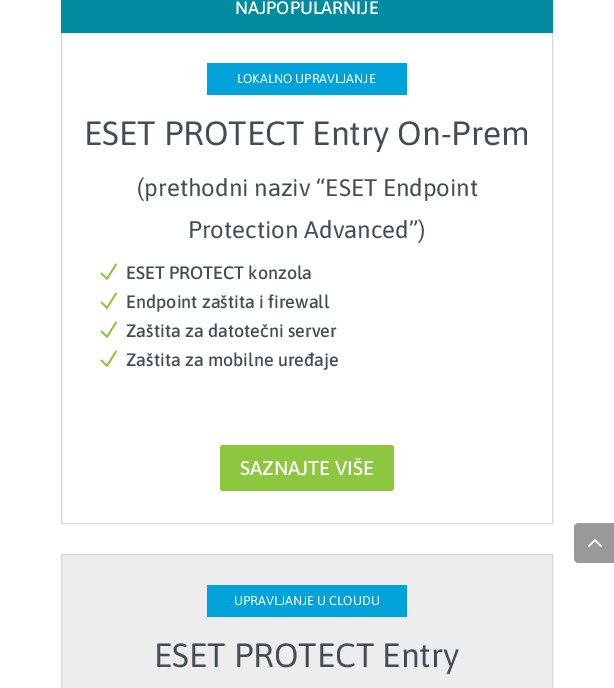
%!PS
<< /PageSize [614 688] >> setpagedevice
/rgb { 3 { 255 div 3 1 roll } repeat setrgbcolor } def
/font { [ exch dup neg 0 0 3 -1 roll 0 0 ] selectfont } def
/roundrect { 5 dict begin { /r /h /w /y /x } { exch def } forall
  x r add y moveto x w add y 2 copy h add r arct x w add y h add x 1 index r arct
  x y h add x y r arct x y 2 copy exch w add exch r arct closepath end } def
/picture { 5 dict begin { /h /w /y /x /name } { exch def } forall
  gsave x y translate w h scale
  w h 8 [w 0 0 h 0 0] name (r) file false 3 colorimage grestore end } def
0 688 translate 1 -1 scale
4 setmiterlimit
255 255 255 rgb
0 0 614 688 rectfill
214 214 214 rgb
61.5 32.5 491 491 rectstroke
0 139 160 rgb
61 0 492 33 rectfill
0 163 217 rgb
207 63 200 32 rectfill
(img/1.rgb) 100 263 17 17 picture
(img/1.rgb) 100 292 17 17 picture
(img/1.rgb) 100 321 17 17 picture
(img/1.rgb) 100 350 17 17 picture
141 198 63 rgb
220 445 174 46 3 roundrect fill
237 237 237 rgb
61.5 554.5 moveto 552.5 554.5 lineto 552.5 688.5 lineto 61.5 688.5 lineto closepath gsave fill grestore
214 214 214 rgb
stroke
0 163 217 rgb
207 585 200 32 rectfill
153 153 153 rgb
579 523 moveto 614 523 lineto 614 563 lineto 579 563 lineto 576 563 574 561 574 558 curveto 574 528 lineto 574 525 576 523 579 523 curveto closepath fill
(img/2.rgb) 588 539 14 8 picture
/Asap-Medium 18 font
255 255 255 rgb
235 14 moveto (NAJPOPULARNIJE) show
/Asap-Regular 12.75 font
237 83 moveto (LOKALNO UPRAVLJANJE) show
/Asap-Regular 33.6 font
66 77 86 rgb
84 145 moveto (ESET PROTECT Entry On-Prem) show
/Asap-Regular 24 font
137 196 moveto (\(prethodni naziv “ESET Endpoint) show
188 238 moveto (Protection Advanced”\)) show
/Asap-Medium 18 font
[
  [(ESET PROTECT konzola) 126 279]
  [(Endpoint zaštita i firewall) 126 308]
  [(Zaštita za datotečni server) 126 337]
  [(Zaštita za mobilne uređaje) 126 366]
] { aload pop moveto show } forall
/Asap-Medium 20 font
255 255 255 rgb
240 475 moveto (SAZNAJTE VIŠE) show
/Asap-Regular 12.75 font
234 605 moveto (UPRAVLJANJE U CLOUDU) show
/Asap-Regular 33.6 font
66 77 86 rgb
154 667 moveto (ESET PROTECT Entry) show
showpage
